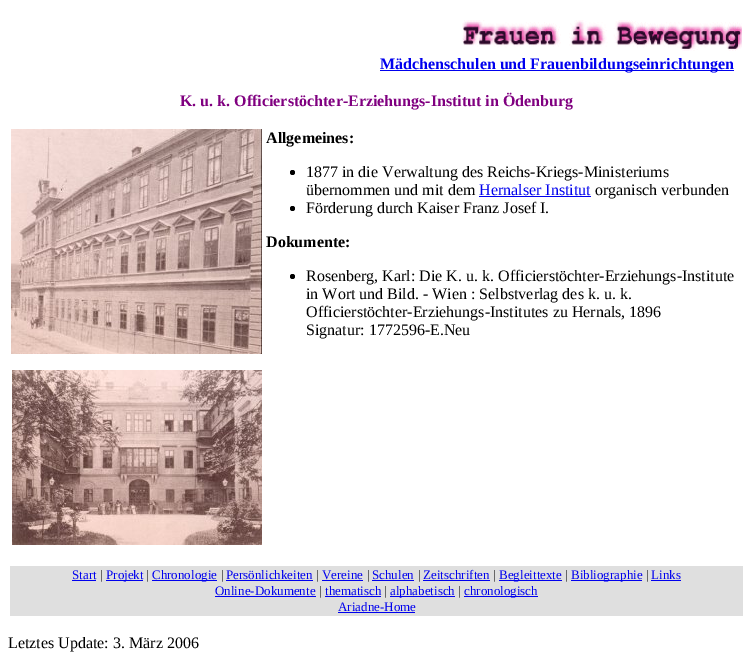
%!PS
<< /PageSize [753 663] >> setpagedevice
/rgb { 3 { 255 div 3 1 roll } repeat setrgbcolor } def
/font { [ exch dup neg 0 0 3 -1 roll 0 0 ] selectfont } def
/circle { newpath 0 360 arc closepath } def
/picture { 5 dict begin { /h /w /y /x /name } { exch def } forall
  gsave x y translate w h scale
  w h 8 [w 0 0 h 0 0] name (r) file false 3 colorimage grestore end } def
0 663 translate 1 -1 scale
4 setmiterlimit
255 255 255 rgb
0 0 753 663 rectfill
(img/1.rgb) 462 20 280 31 picture
0 0 238 rgb
380 70 354 1 rectfill
(img/2.rgb) 11 129 251 225 picture
(img/3.rgb) 12 370 250 175 picture
0 0 0 rgb
292.5 172.5 2.5 circle fill
0 0 238 rgb
479 196 112 1 rectfill
0 0 0 rgb
292.5 208.5 2.5 circle fill
292.5 276.5 2.5 circle fill
[
  [10 566 733 50 223 223 223]
  [72 580 24 1 0 0 238]
  [106 580 37 1 0 0 238]
  [152 580 65 1 0 0 238]
  [226 580 87 1 0 0 238]
  [322 580 41 1 0 0 238]
  [372 580 42 1 0 0 238]
  [423 580 67 1 0 0 238]
  [499 580 63 1 0 0 238]
  [571 580 71 1 0 0 238]
  [651 580 30 1 0 0 238]
  [215 596 101 1 0 0 238]
  [325 596 56 1 0 0 238]
  [390 596 65 1 0 0 238]
  [464 596 74 1 0 0 238]
  [338 612 77 1 0 0 238]
] { aload pop rgb rectfill } forall
/LiberationSerif-Bold 16 font
380 69 moveto (Mädchenschulen und Frauenbildungseinrichtungen) show
128 0 128 rgb
180 106 moveto (K. u. k. Officierstöchter-Erziehungs-Institut in Ödenburg) show
0 0 0 rgb
266 143 moveto (Allgemeines:) show
/LiberationSerif-Regular 16 font
306 177 moveto (1877 in die Verwaltung des Reichs-Kriegs-Ministeriums) show
306 195 moveto (übernommen und mit dem) show
0 0 238 rgb
479 195 moveto (Hernalser Institut) show
0 0 0 rgb
595 195 moveto (organisch verbunden) show
306 213 moveto (Förderung durch Kaiser Franz Josef I.) show
/LiberationSerif-Bold 16 font
266 247 moveto (Dokumente:) show
/LiberationSerif-Regular 16 font
[
  [(Rosenberg, Karl: Die K. u. k. Officierstöchter-Erziehungs-Institute) 306 281]
  [(in Wort und Bild. - Wien : Selbstverlag des k. u. k.) 306 299]
  [(Officierstöchter-Erziehungs-Institutes zu Hernals, 1896) 306 317]
  [(Signatur: 1772596-E.Neu) 306 335]
] { aload pop moveto show } forall
/LiberationSerif-Regular 13 font
0 0 238 rgb
72 579 moveto (Start) show
0 0 0 rgb
100 579 moveto (|) show
0 0 238 rgb
106 579 moveto (Projekt) show
0 0 0 rgb
146 579 moveto (|) show
0 0 238 rgb
152 579 moveto (Chronologie) show
0 0 0 rgb
221 579 moveto (|) show
0 0 238 rgb
226 579 moveto (Persönlichkeiten) show
0 0 0 rgb
316 579 moveto (|) show
0 0 238 rgb
322 579 moveto (Vereine) show
0 0 0 rgb
367 579 moveto (|) show
0 0 238 rgb
372 579 moveto (Schulen) show
0 0 0 rgb
418 579 moveto (|) show
0 0 238 rgb
423 579 moveto (Zeitschriften) show
0 0 0 rgb
493 579 moveto (|) show
0 0 238 rgb
499 579 moveto (Begleittexte) show
0 0 0 rgb
565 579 moveto (|) show
0 0 238 rgb
571 579 moveto (Bibliographie) show
0 0 0 rgb
646 579 moveto (|) show
0 0 238 rgb
651 579 moveto (Links) show
215 595 moveto (Online-Dokumente) show
0 0 0 rgb
319 595 moveto (|) show
0 0 238 rgb
325 595 moveto (thematisch) show
0 0 0 rgb
384 595 moveto (|) show
0 0 238 rgb
390 595 moveto (alphabetisch) show
0 0 0 rgb
458 595 moveto (|) show
0 0 238 rgb
464 595 moveto (chronologisch) show
338 611 moveto (Ariadne-Home) show
/LiberationSerif-Regular 16 font
0 0 0 rgb
8 648 moveto (Letztes Update: 3. März 2006) show
showpage
